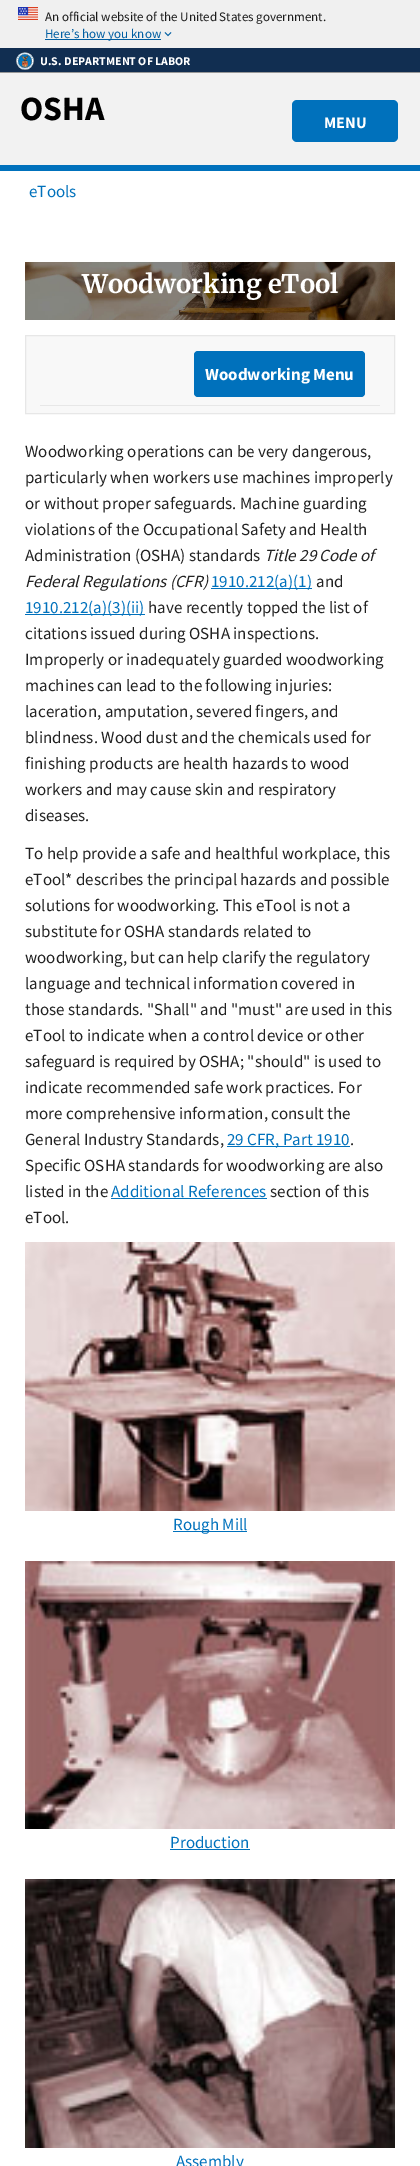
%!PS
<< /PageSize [420 2166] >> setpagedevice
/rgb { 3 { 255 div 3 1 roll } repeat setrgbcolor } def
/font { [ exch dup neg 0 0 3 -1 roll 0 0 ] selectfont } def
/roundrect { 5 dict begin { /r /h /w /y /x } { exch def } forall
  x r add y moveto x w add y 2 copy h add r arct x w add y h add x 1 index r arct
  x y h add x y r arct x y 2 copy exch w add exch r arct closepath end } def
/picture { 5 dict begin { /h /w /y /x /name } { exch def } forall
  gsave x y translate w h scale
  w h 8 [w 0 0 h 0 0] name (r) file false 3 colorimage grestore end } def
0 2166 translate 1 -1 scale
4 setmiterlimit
255 255 255 rgb
0 0 420 2166 rectfill
240 240 240 rgb
0 0 420 48 rectfill
(img/1.rgb) 18 7 20 13 picture
0 94 162 rgb
45 39 116 1 rectfill
(img/2.rgb) 164 32 8 5 picture
17 46 81 rgb
0 48 420 24 rectfill
151 151 151 rgb
0 72 420 1 rectfill
(img/3.rgb) 16 52 18 18 picture
242 242 242 rgb
0 73 420 92 rectfill
0 113 188 rgb
292 100 106 42 5 roundrect fill
0 165 420 6 rectfill
(img/4.rgb) 25 262 370 58 picture
248 248 248 rgb
25.5 335.5 moveto 394.5 335.5 lineto 394.5 413.5 lineto 25.5 413.5 lineto closepath gsave fill grestore
231 231 231 rgb
stroke
0 113 188 rgb
194 351 171 46 4 roundrect fill
[
  [40 405 340 1 231 231 231]
  [211 588 101 1 0 113 188]
  [25 614 120 1 0 113 188]
  [227 1146 123 1 0 113 188]
  [111 1198 156 1 0 113 188]
] { aload pop rgb rectfill } forall
(img/5.rgb) 25 1242 370 269 picture
173 1531 74 1 rectfill
(img/6.rgb) 25 1561 370 268 picture
170 1849 80 1 rectfill
(img/7.rgb) 25 1879 370 269 picture
/SourceSansPro-Regular 13 font
27 27 27 rgb
45 21 moveto (An official website of the United States government.) show
0 94 162 rgb
45 38 moveto (Here’s how you know) show
/SourceSansPro-Bold 11.9 font
255 255 255 rgb
40 65 moveto (U.S. DEPARTMENT OF LABOR) show
/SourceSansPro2-Bold 34 font
0 0 0 rgb
20 120 moveto (OSHA) show
/SourceSansPro-Bold 16 font
255 255 255 rgb
324 128 moveto (MENU) show
/SourceSansPro2-Regular 17 font
0 113 188 rgb
29 197 moveto (eTools) show
/Merriweather-Bold 25.5 font
255 255 255 rgb
82 293 moveto (Woodworking eTool) show
/SourceSansPro-Bold 17 font
205 380 moveto (Woodworking Menu) show
/SourceSansPro2-Regular 17 font
33 33 33 rgb
[
  [(Woodworking operations can be very dangerous,) 25 457]
  [(particularly when workers use machines improperly) 25 483]
  [(or without proper safeguards. Machine guarding) 25 509]
  [(violations of the Occupational Safety and Health) 25 535]
  [(Administration \(OSHA\) standards) 25 561]
] { aload pop moveto show } forall
/SourceSansPro-Italic 17 font
264 561 moveto (Title 29 Code of) show
25 587 moveto (Federal Regulations \(CFR\)) show
/SourceSansPro2-Regular 17 font
0 113 188 rgb
211 587 moveto (1910.212\(a\)\(1\)) show
33 33 33 rgb
316 587 moveto (and) show
0 113 188 rgb
25 613 moveto (1910.212\(a\)\(3\)\(ii\)) show
33 33 33 rgb
[
  [(have recently topped the list of) 148 613]
  [(citations issued during OSHA inspections.) 25 639]
  [(Improperly or inadequately guarded woodworking) 25 665]
  [(machines can lead to the following injuries:) 25 691]
  [(laceration, amputation, severed fingers, and) 25 717]
  [(blindness. Wood dust and the chemicals used for) 25 743]
  [(finishing products are health hazards to wood) 25 769]
  [(workers and may cause skin and respiratory) 25 795]
  [(diseases.) 25 821]
  [(To help provide a safe and healthful workplace, this) 25 859]
  [(eTool* describes the principal hazards and possible) 25 885]
  [(solutions for woodworking. This eTool is not a) 25 911]
  [(substitute for OSHA standards related to) 25 937]
  [(woodworking, but can help clarify the regulatory) 25 963]
  [(language and technical information covered in) 25 989]
  [(those standards. "Shall" and "must" are used in this) 25 1015]
  [(eTool to indicate when a control device or other) 25 1041]
  [(safeguard is required by OSHA; "should" is used to) 25 1067]
  [(indicate recommended safe work practices. For) 25 1093]
  [(more comprehensive information, consult the) 25 1119]
  [(General Industry Standards,) 25 1145]
] { aload pop moveto show } forall
0 113 188 rgb
227 1145 moveto (29 CFR, Part 1910) show
33 33 33 rgb
[
  [(.) 350 1145]
  [(Specific OSHA standards for woodworking are also) 25 1171]
  [(listed in the) 25 1197]
] { aload pop moveto show } forall
0 113 188 rgb
111 1197 moveto (Additional References) show
33 33 33 rgb
270 1197 moveto (section of this) show
25 1223 moveto (eTool.) show
0 113 188 rgb
[
  [(Rough Mill) 173 1530]
  [(Production) 170 1848]
  [(Assembly) 176 2167]
] { aload pop moveto show } forall
showpage
